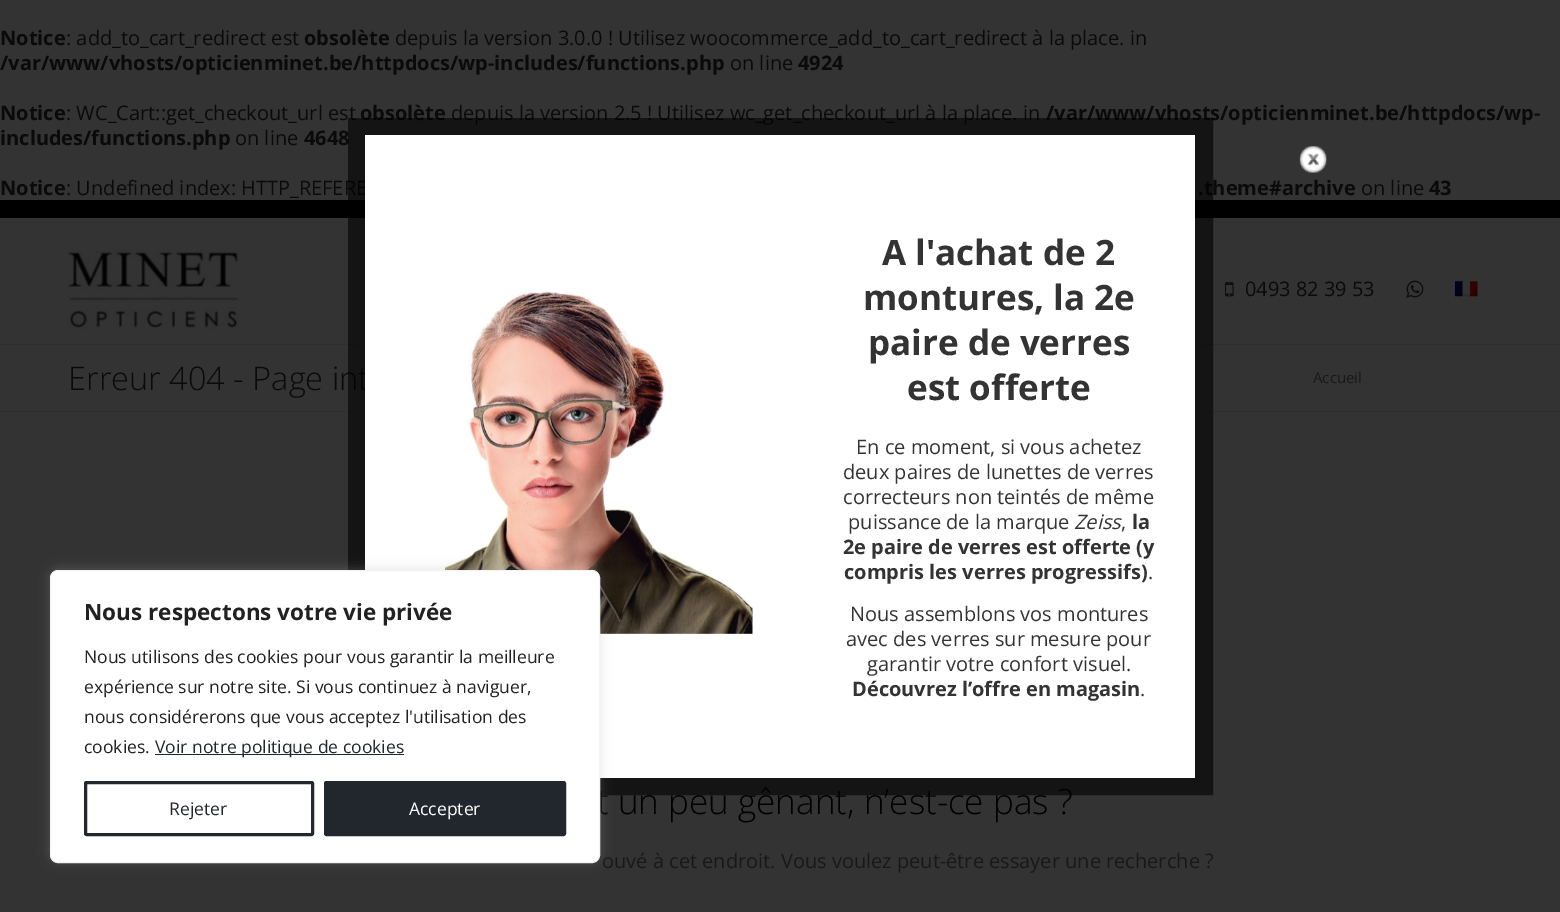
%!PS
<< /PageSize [1560 912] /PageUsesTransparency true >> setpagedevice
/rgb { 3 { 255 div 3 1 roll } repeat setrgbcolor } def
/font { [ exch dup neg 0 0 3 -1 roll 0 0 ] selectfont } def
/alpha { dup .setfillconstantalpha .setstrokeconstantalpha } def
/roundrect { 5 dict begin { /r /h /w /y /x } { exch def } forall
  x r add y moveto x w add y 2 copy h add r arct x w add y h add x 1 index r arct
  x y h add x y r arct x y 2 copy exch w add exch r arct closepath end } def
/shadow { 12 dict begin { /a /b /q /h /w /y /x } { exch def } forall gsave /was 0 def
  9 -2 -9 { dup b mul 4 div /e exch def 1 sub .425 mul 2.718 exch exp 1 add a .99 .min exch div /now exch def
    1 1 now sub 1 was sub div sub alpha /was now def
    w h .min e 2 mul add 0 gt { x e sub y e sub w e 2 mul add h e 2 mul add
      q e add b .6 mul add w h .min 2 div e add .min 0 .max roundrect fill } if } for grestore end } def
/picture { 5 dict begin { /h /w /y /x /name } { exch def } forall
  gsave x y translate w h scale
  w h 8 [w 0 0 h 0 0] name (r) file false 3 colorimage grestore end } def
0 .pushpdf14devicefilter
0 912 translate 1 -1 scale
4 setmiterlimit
51 51 51 rgb
0 0 1560 912 rectfill
0 0 0 rgb
0 200 1560 18 rectfill
(img/1.rgb) 1299 146 28 27 picture
46 46 46 rgb
0 344 1560 1 rectfill
(img/3.rgb) 67 249 172 82 picture
(img/4.rgb) 1225 282 9 15 picture
(img/5.rgb) 1406 280 18 18 picture
(img/6.rgb) 1455 281 23 16 picture
0 411 1560 1 rectfill
/OpenSans-Bold 20 font
10 10 10 rgb
0 45 moveto (Notice) show
/OpenSans-Regular 20 font
66 45 moveto (: add_to_cart_redirect est) show
/OpenSans-Bold 20 font
304 45 moveto (obsolète) show
/OpenSans-Regular 20 font
395 45 moveto (depuis la version 3.0.0 ! Utilisez woocommerce_add_to_cart_redirect à la place. in) show
/OpenSans-Bold 20 font
0 70 moveto (/var/www/vhosts/opticienminet.be/httpdocs/wp-includes/functions.php) show
/OpenSans-Regular 20 font
730 70 moveto (on line) show
/OpenSans-Bold 20 font
798 70 moveto (4924) show
0 120 moveto (Notice) show
/OpenSans-Regular 20 font
66 120 moveto (: WC_Cart::get_checkout_url est) show
/OpenSans-Bold 20 font
360 120 moveto (obsolète) show
/OpenSans-Regular 20 font
451 120 moveto (depuis la version 2.5 ! Utilisez wc_get_checkout_url à la place. in) show
/OpenSans-Bold 20 font
1046 120 moveto (/var/www/vhosts/opticienminet.be/httpdocs/wp-) show
0 145 moveto (includes/functions.php) show
/OpenSans-Regular 20 font
235 145 moveto (on line) show
/OpenSans-Bold 20 font
304 145 moveto (4648) show
0 195 moveto (Notice) show
/OpenSans-Regular 20 font
66 195 moveto (: Undefined index: HTTP_REFERE) show
/OpenSans-Bold 20 font
1198 195 moveto (.theme#archive) show
/OpenSans-Regular 20 font
1361 195 moveto (on line) show
/OpenSans-Bold 20 font
1429 195 moveto (43) show
/OpenSans-Regular 20 font
1245 296 moveto (0493 82 39 53) show
/OpenSans-Light 32.5 font
68 390 moveto (Erreur 404 - Page int) show
/OpenSans-Regular 15 font
24 24 24 rgb
1313 383 moveto (Accueil) show
/OpenSans-Light 35 font
0 0 0 rgb
597 814 moveto (t un peu gênant, n’est-ce pas ?) show
0.6 alpha
18 setlinewidth
357 127 847 659 rectstroke
1 alpha
255 255 255 rgb
365 135 830 643 rectfill
/OpenSans-Regular 20 font
51 51 51 rgb
1140 696 moveto (.) show
/OpenSans-Bold 20 font
852 696 moveto (Découvrez l’offre en magasin) show
/OpenSans-Regular 20 font
[
  [(garantir votre confort visuel.) 867 671]
  [(avec des verres sur mesure pour) 846 646]
  [(Nous assemblons vos montures) 850 621]
  [(.) 1148 579]
] { aload pop moveto show } forall
/OpenSans-Bold 20 font
[
  [(compris les verres progressifs\)) 844 579]
  [(2e paire de verres est offerte \(y) 843 554]
  [(la) 1132 529]
] { aload pop moveto show } forall
/OpenSans-Italic 20 font
1074 529 moveto (Zeiss) show
/OpenSans-Regular 20 font
[
  [(,) 1121 529]
  [(puissance de la marque) 848 529]
  [(correcteurs non teintés de même) 843 504]
  [(deux paires de lunettes de verres) 843 479]
  [(En ce moment, si vous achetez) 856 454]
] { aload pop moveto show } forall
/OpenSans-Bold 35 font
[
  [(est offerte) 907 400]
  [(paire de verres) 868 355]
  [(montures, la 2e) 863 310]
  [(A l'achat de 2) 882 265]
] { aload pop moveto show } forall
(img/2.rgb) 445 291 308 343 picture
/OpenSans-Regular 20 font
24 24 24 rgb
602 868 moveto (ouvé à cet endroit. Vous voulez peut-être essayer une recherche ?) show
172 171 171 rgb
50 569 550 292 8 6 0.3 shadow
255 255 255 rgb
50.5 570.5 549 292 7.5 roundrect gsave fill grestore
244 244 244 rgb
1 setlinewidth
stroke
/OpenSans-Bold 22.5 font
33 33 33 rgb
84 620 moveto (Nous respectons votre vie privée) show
/OpenSans-Regular 17.5 font
[
  [(Nous utilisons des cookies pour vous garantir la meilleure) 84 663]
  [(expérience sur notre site. Si vous continuez à naviguer,) 84 693]
  [(nous considérerons que vous acceptez l'utilisation des) 84 723]
  [(cookies.) 84 753]
] { aload pop moveto show } forall
34 38 45 rgb
155 754 249 1 rectfill
155 753 moveto (Voir notre politique de cookies) show
3 setlinewidth
85.5 782.5 227 52 1 roundrect stroke
169 815 moveto (Rejeter) show
325.5 782.5 239 52 1 roundrect gsave fill grestore
stroke
255 255 255 rgb
409 815 moveto (Accepter) show
.poppdf14devicefilter showpage
